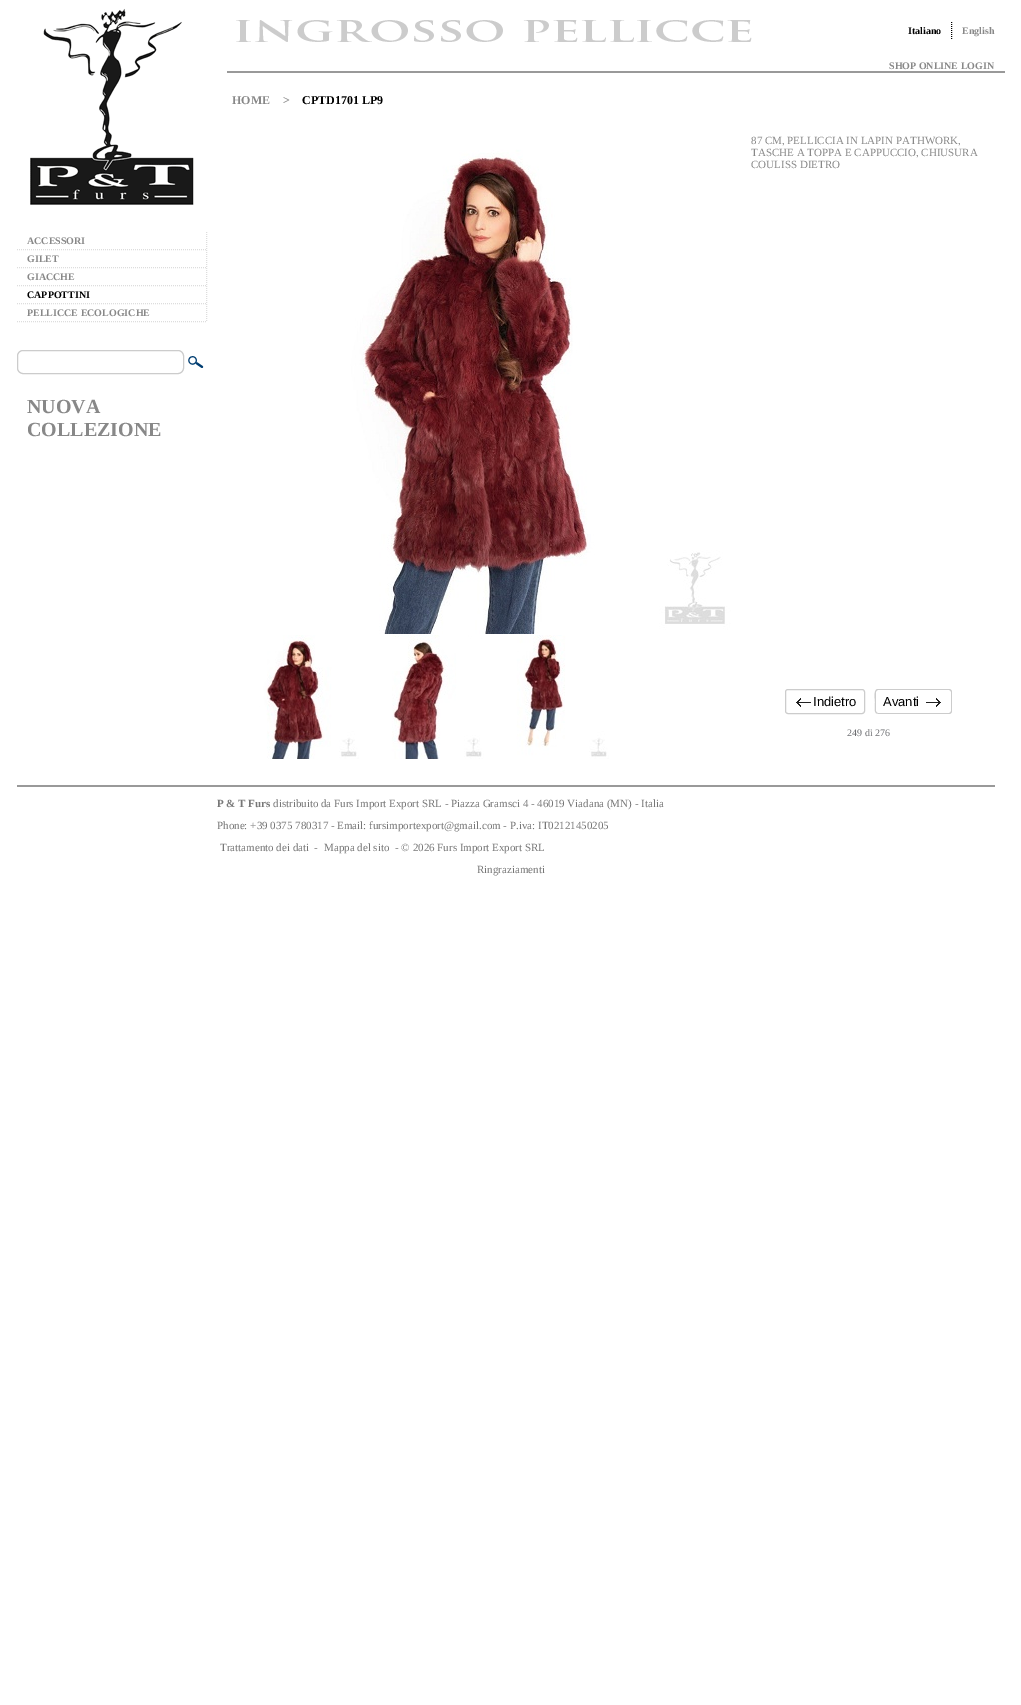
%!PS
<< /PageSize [1021 1705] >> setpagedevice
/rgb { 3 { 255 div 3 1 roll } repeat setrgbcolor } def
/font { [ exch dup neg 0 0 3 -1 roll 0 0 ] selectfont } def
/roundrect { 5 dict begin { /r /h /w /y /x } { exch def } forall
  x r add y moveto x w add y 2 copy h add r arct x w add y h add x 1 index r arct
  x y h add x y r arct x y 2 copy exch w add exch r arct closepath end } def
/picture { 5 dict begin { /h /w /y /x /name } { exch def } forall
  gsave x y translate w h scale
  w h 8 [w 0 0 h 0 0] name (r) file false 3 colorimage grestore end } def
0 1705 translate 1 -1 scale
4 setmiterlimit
255 255 255 rgb
0 0 1021 1705 rectfill
(img/1.rgb) 30 8 164 197 picture
221 221 221 rgb
[1 1] 0 setdash
206.5 232 moveto 206.5 250 lineto stroke
17 249.5 moveto 207 249.5 lineto stroke
206.5 250 moveto 206.5 268 lineto stroke
17 267.5 moveto 207 267.5 lineto stroke
206.5 268 moveto 206.5 286 lineto stroke
17 285.5 moveto 207 285.5 lineto stroke
206.5 286 moveto 206.5 304 lineto stroke
17 303.5 moveto 207 303.5 lineto stroke
206.5 304 moveto 206.5 322 lineto stroke
17 321.5 moveto 207 321.5 lineto stroke
204 204 204 rgb
[] 0 setdash
17.5 350.5 166 23 5.5 roundrect stroke
(img/2.rgb) 188 356 16 12 picture
(img/3.rgb) 236 20 516 22 picture
0 0 0 rgb
[1 1] 0 setdash
951.5 22 moveto 951.5 39 lineto stroke
153 153 153 rgb
227 71 778 2 rectfill
(img/4.rgb) 235 134 500 500 picture
(img/5.rgb) 235 635 124 124 picture
(img/6.rgb) 360 635 124 124 picture
(img/7.rgb) 485 635 124 124 picture
204 204 204 rgb
[] 0 setdash
785.5 689.5 79 24 2.5 roundrect stroke
(img/8.rgb) 796 698 15 9 picture
878 689 moveto 919 689 lineto 919 714 lineto 885 714 lineto 873 714 875 714 875 702 curveto 875 699 873 689 878 689 curveto closepath 878 690 moveto 919 690 lineto 919 713 lineto 878 713 lineto 877 713 876 712 876 711 curveto 876 692 lineto 876 691 877 690 878 690 curveto closepath eofill
919 689 moveto 949 689 lineto 950.5 689 952 690.5 952 692 curveto 952 711 lineto 952 712.5 950.5 714 949 714 curveto 919 714 lineto closepath 919 690 moveto 949 690 lineto 950 690 951 691 951 692 curveto 951 711 lineto 951 712 950 713 949 713 curveto 919 713 lineto closepath eofill
(img/9.rgb) 926 698 15 9 picture
153 153 153 rgb
17 785 978 2 rectfill
/LiberationSerif-Bold 10 font
136 136 136 rgb
[
  [(ACCESSORI) 27 244]
  [(GILET) 27 262]
  [(GIACCHE) 27 280]
] { aload pop moveto show } forall
0 0 0 rgb
27 298 moveto (CAPPOTTINI) show
136 136 136 rgb
27 316 moveto (PELLICCE ECOLOGICHE) show
/LiberationSerif-Bold 20 font
27 413 moveto (NUOVA) show
27 436 moveto (COLLEZIONE) show
/LiberationSerif-Bold 10 font
0 0 0 rgb
908 34 moveto (Italiano) show
136 136 136 rgb
962 34 moveto (English) show
889 69 moveto (SHOP ONLINE LOGIN) show
/LiberationSerif-Bold 12 font
232 104 moveto (HOME) show
283 104 moveto (>) show
0 0 0 rgb
302 104 moveto (CPTD1701 LP9) show
/LiberationSerif-Regular 11 font
136 136 136 rgb
[
  [(87 CM, PELLICCIA IN LAPIN PATHWORK,) 751 144]
  [(TASCHE A TOPPA E CAPPUCCIO, CHIUSURA) 751 156]
  [(COULISS DIETRO) 751 168]
] { aload pop moveto show } forall
/LiberationSans-Regular 13 font
0 0 0 rgb
813 706 moveto (Indietro) show
883 706 moveto (Avanti) show
/LiberationSerif-Regular 10 font
109 110 113 rgb
847 736 moveto (249 di 276) show
/LiberationSerif-Bold 11 font
119 119 119 rgb
217 807 moveto (P & T Furs) show
/LiberationSerif-Regular 11 font
[
  [(distribuito da Furs Import Export SRL - Piazza Gramsci 4 - 46019 Viadana \(MN\) - Italia) 273 807]
  [(Phone: +39 0375 780317 - Email: fursimportexport@gmail.com - P.iva: IT02121450205) 217 829]
  [(Trattamento dei dati) 220 851]
  [(-) 314 851]
  [(Mappa del sito) 324 851]
  [(- © 2026 Furs Import Export SRL) 395 851]
  [(Ringraziamenti) 477 873]
] { aload pop moveto show } forall
showpage
